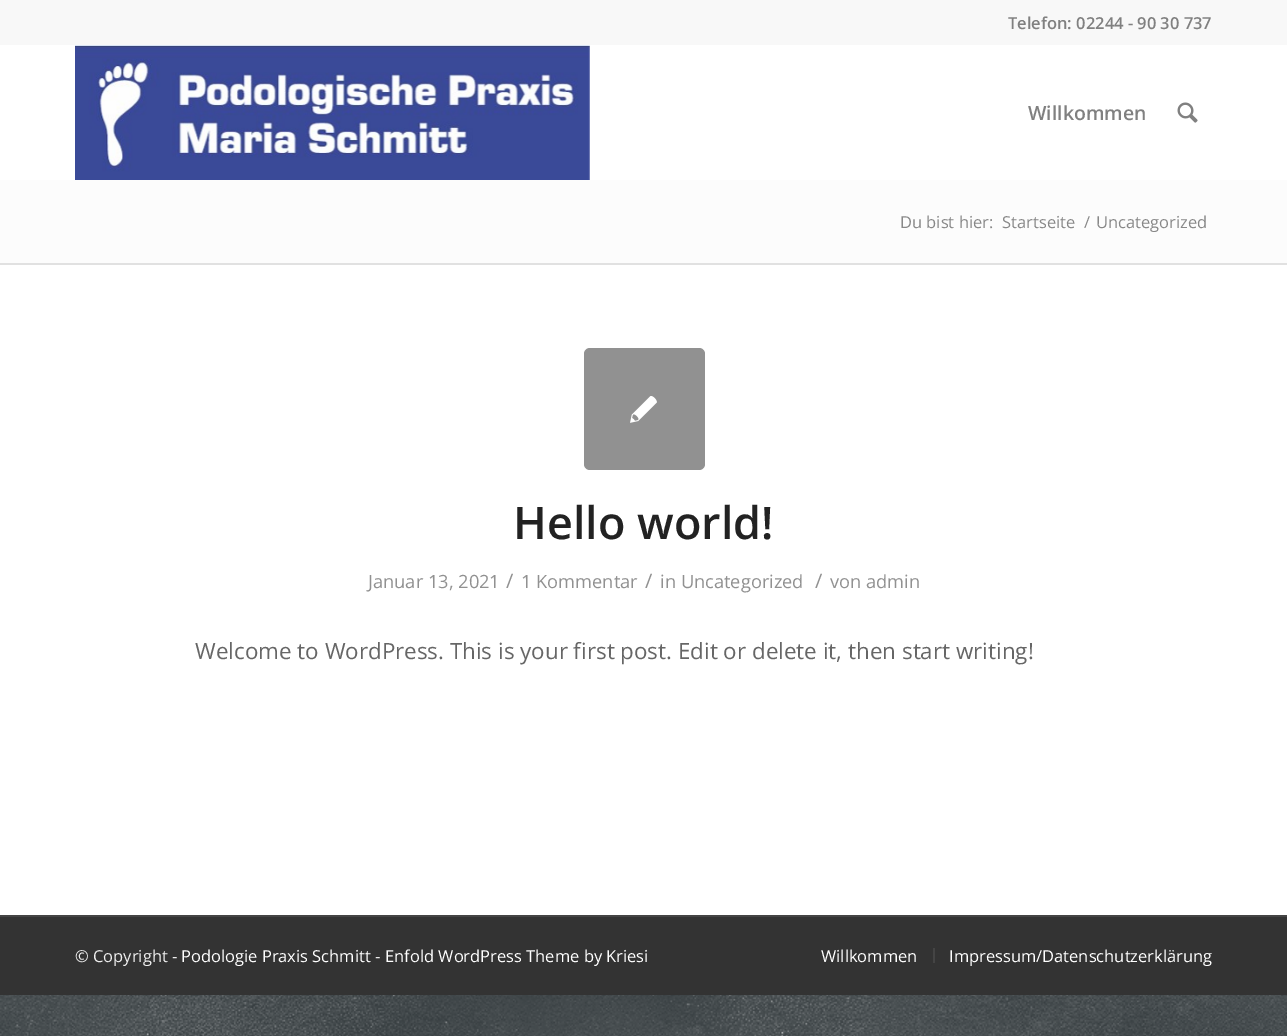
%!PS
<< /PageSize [1287 1036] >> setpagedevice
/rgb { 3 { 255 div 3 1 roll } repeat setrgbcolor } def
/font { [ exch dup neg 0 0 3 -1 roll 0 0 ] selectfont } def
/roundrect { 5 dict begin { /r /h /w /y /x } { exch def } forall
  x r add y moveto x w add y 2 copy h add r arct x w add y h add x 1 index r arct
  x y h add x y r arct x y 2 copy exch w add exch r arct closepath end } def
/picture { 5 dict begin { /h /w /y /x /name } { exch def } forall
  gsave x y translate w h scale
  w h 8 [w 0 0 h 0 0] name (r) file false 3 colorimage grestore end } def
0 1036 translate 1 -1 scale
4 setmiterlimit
54 61 64 rgb
0 0 1287 1036 rectfill
(img/1.rgb) 0 995 1287 41 picture
248 248 248 rgb
0 0 1287 45 rectfill
255 255 255 rgb
0 45 1287 135 rectfill
(img/2.rgb) 75 45 515 135 picture
(img/3.rgb) 1177 102 21 21 picture
[
  [0 265 1287 650 255 255 255]
  [0 180 1287 83 252 252 252]
  [0 263 1287 2 225 225 225]
] { aload pop rgb rectfill } forall
145 145 145 rgb
584 348 121 122 6 roundrect fill
(img/4.rgb) 630 396 27 27 picture
[
  [0 917 1287 78 51 51 51]
  [0 915 1287 2 68 68 68]
  [933 948 2 15 68 68 68]
] { aload pop rgb rectfill } forall
/OpenSans-SemiBold 16.5 font
128 128 128 rgb
1008 29 moveto (Telefon: 02244 - 90 30 737) show
/OpenSans-SemiBold 19.5 font
1028 120 moveto (Willkommen) show
/OpenSans-Regular 16.5 font
136 136 136 rgb
[
  [(Du bist hier:) 900 228]
  [(Startseite) 1002 228]
  [(/) 1084 228]
  [(Uncategorized) 1096 228]
] { aload pop moveto show } forall
/OpenSans-SemiBold 45 font
34 34 34 rgb
513 539 moveto (Hello world!) show
/OpenSans-Regular 18.25 font
145 145 145 rgb
368 588 moveto (Januar 13, 2021) show
/OpenSans-Regular 20 font
506 588 moveto (/) show
/OpenSans-Regular 18.25 font
521 588 moveto (1 Kommentar) show
/OpenSans-Regular 20 font
645 588 moveto (/) show
/OpenSans-Regular 18.25 font
660 588 moveto (in Uncategorized) show
/OpenSans-Regular 20 font
815 588 moveto (/) show
/OpenSans-Regular 18.25 font
830 588 moveto (von admin) show
/OpenSans-Regular 22.4 font
102 102 102 rgb
195 659 moveto (Welcome to WordPress. This is your first post. Edit or delete it, then start writing!) show
/OpenSans-Regular 16.5 font
238 238 238 rgb
75 962 moveto (© Copyright -) show
255 255 255 rgb
181 962 moveto (Podologie Praxis Schmitt) show
238 238 238 rgb
375 962 moveto (-) show
255 255 255 rgb
[
  [(Enfold WordPress Theme by Kriesi) 385 962]
  [(Willkommen) 821 962]
  [(Impressum/Datenschutzerklärung) 949 962]
] { aload pop moveto show } forall
showpage
